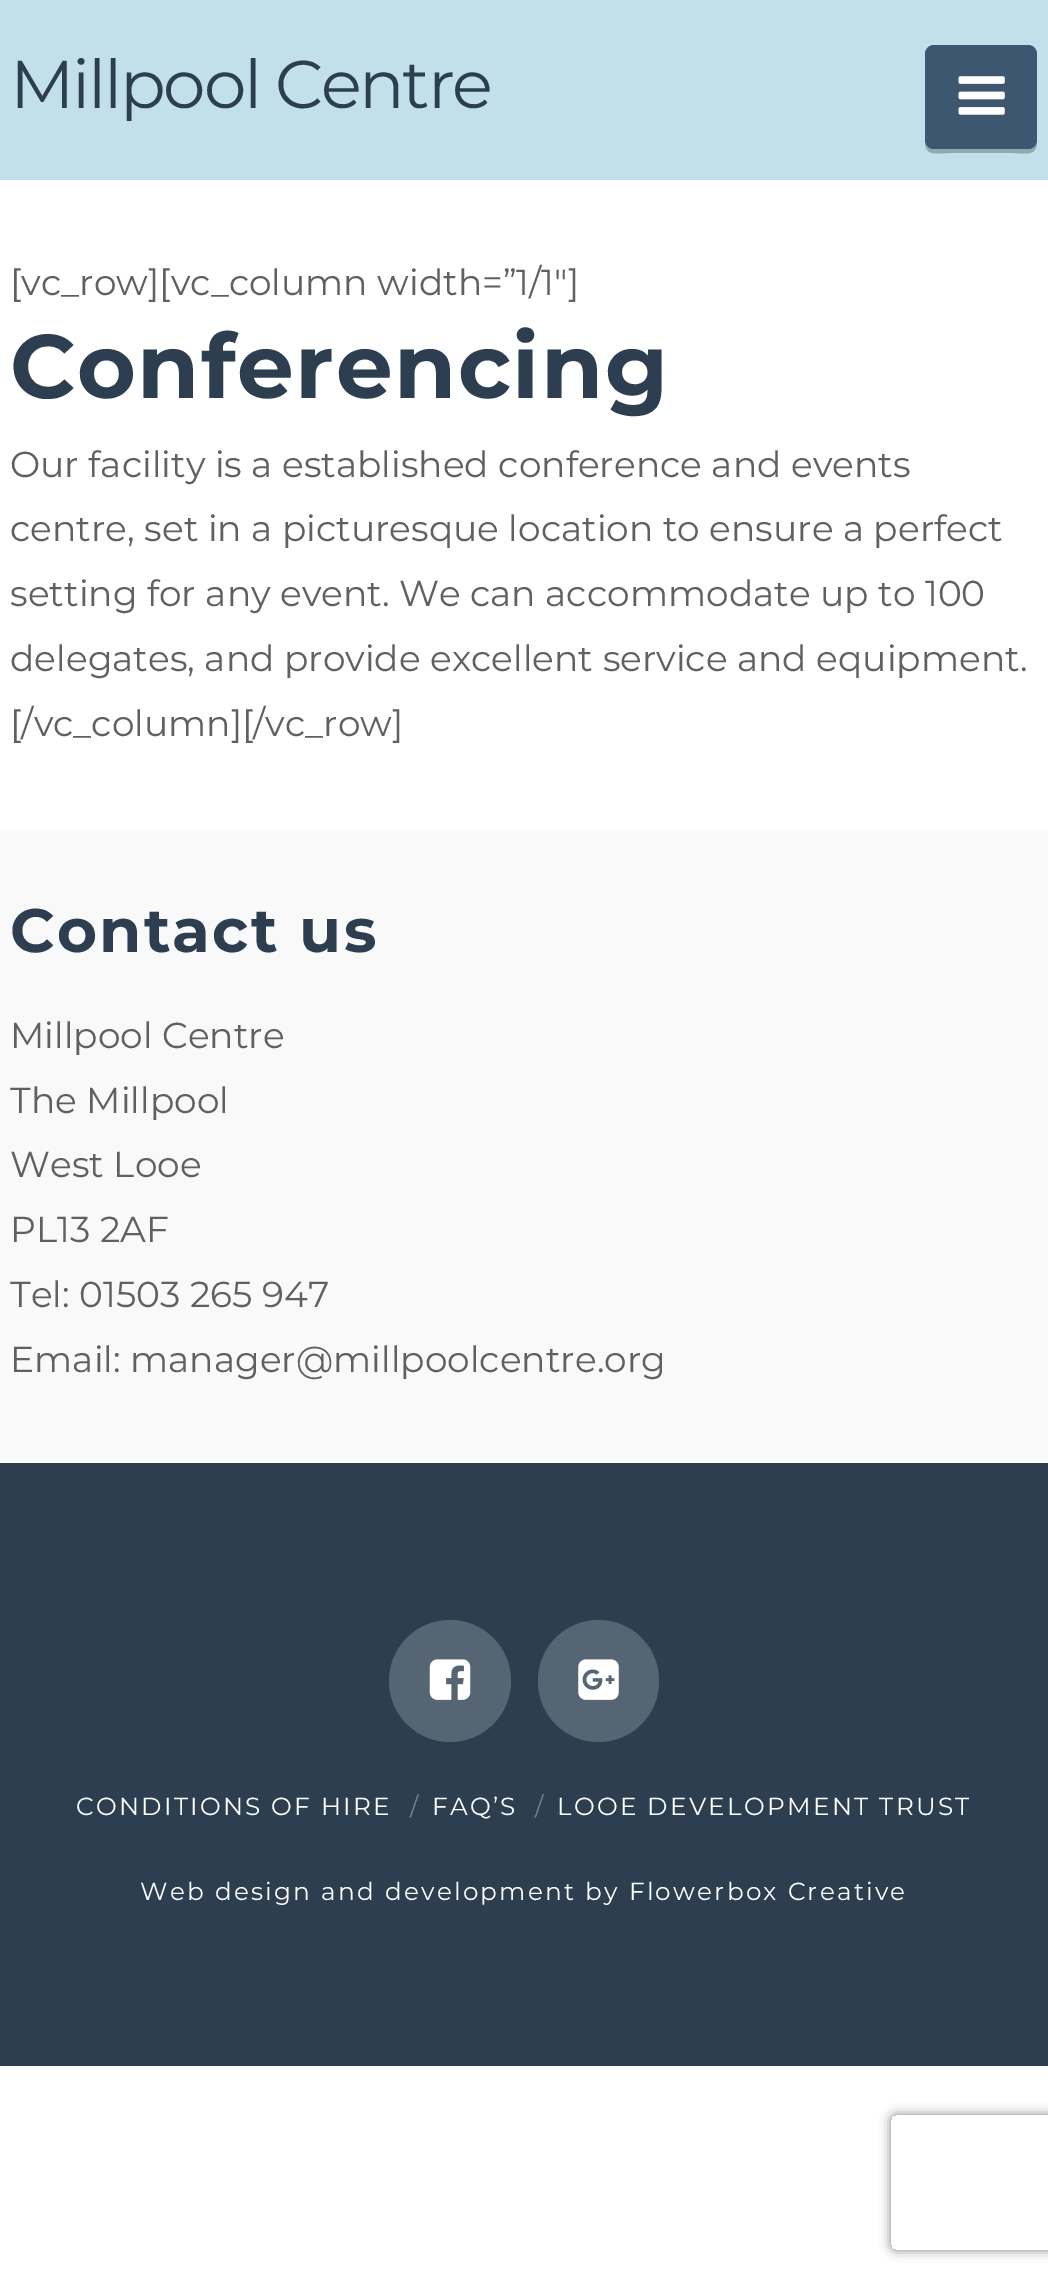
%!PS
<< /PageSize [1048 2280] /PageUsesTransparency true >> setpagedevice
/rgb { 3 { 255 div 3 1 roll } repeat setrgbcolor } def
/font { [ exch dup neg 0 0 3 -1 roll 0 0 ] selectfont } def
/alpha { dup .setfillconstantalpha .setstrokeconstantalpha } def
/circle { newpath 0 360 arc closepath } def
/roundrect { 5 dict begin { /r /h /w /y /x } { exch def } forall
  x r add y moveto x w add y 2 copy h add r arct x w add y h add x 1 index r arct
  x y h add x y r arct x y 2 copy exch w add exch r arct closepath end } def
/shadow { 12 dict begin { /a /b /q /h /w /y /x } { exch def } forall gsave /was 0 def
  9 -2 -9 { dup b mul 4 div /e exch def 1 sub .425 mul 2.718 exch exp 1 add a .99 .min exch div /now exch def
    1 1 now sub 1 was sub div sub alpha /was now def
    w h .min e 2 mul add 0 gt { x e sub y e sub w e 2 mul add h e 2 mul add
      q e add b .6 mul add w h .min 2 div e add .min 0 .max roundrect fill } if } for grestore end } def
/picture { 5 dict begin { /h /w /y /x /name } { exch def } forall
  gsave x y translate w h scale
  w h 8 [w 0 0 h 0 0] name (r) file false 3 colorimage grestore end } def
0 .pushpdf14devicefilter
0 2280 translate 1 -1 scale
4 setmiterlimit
255 255 255 rgb
0 0 1048 2280 rectfill
194 224 234 rgb
0 0 1048 180 rectfill
146 168 176 rgb
925 142 moveto 925 157 938 153 950 153 curveto 1012 153 lineto 1024 153 1037 157 1037 142 curveto 1036 146 1032 148 1028 148 curveto 934 148 lineto 930 148 926 146 925 142 curveto closepath fill
62 87 113 rgb
925 45 112 104 9 roundrect fill
(img/1.rgb) 958 76 47 39 picture
249 249 249 rgb
0 830 1048 633 rectfill
44 62 80 rgb
0 1463 1048 603 rectfill
86 101 115 rgb
450 1681 61 circle fill
(img/2.rgb) 429 1659 42 41 picture
538 1620 121 122 60.5 roundrect fill
(img/3.rgb) 578 1659 41 41 picture
gsave
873 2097 moveto 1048 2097 lineto 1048 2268 lineto 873 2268 lineto closepath 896 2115 moveto 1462 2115 lineto 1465 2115 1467 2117 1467 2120 curveto 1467 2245 lineto 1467 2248 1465 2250 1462 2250 curveto 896 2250 lineto 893 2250 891 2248 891 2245 curveto 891 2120 lineto 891 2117 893 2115 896 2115 curveto closepath eoclip newpath
128 128 128 rgb
891 2115 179 135 5 5.5 1 shadow
grestore
/Montserrat-Regular 67.5 font
44 62 80 rgb
10 108 moveto -2.25 0 (Millpool Centre) ashow
/Montserrat-Regular 36 font
96 96 96 rgb
10 295 moveto ([vc_row][vc_column width=”1/1″]) show
/Montserrat-Bold 90 font
44 62 80 rgb
10 398 moveto 1.5 0 (Conferencing) ashow
/Montserrat-Regular 36 font
96 96 96 rgb
[
  [(Our facility is a established conference and events) 10 477]
  [(centre, set in a picturesque location to ensure a perfect) 10 541]
  [(setting for any event. We can accommodate up to 100) 10 606]
  [(delegates, and provide excellent service and equipment.) 10 671]
  [([/vc_column][/vc_row]) 10 736]
] { aload pop moveto show } forall
/Montserrat-Bold 61.25 font
44 62 80 rgb
10 952 moveto 2.25 0 (Contact us) ashow
/Montserrat-Regular 36 font
96 96 96 rgb
[
  [(Millpool Centre) 10 1048]
  [(The Millpool) 10 1113]
  [(West Looe) 10 1177]
  [(PL13 2AF) 10 1242]
  [(Tel: 01503 265 947) 10 1307]
  [(Email: manager@millpoolcentre.org) 10 1372]
] { aload pop moveto show } forall
/Montserrat-Regular 24.75 font
255 255 255 rgb
76 1815 moveto 2.25 0 (CONDITIONS OF HIRE) ashow
118 130 141 rgb
410 1815 moveto (/) show
255 255 255 rgb
432 1815 moveto 2.25 0 (FAQ’S) ashow
118 130 141 rgb
535 1815 moveto (/) show
255 255 255 rgb
557 1815 moveto 2.25 0 (LOOE DEVELOPMENT TRUST) ashow
140 1900 moveto 2.25 0 (Web design and development by Flowerbox Creative) ashow
.poppdf14devicefilter showpage
